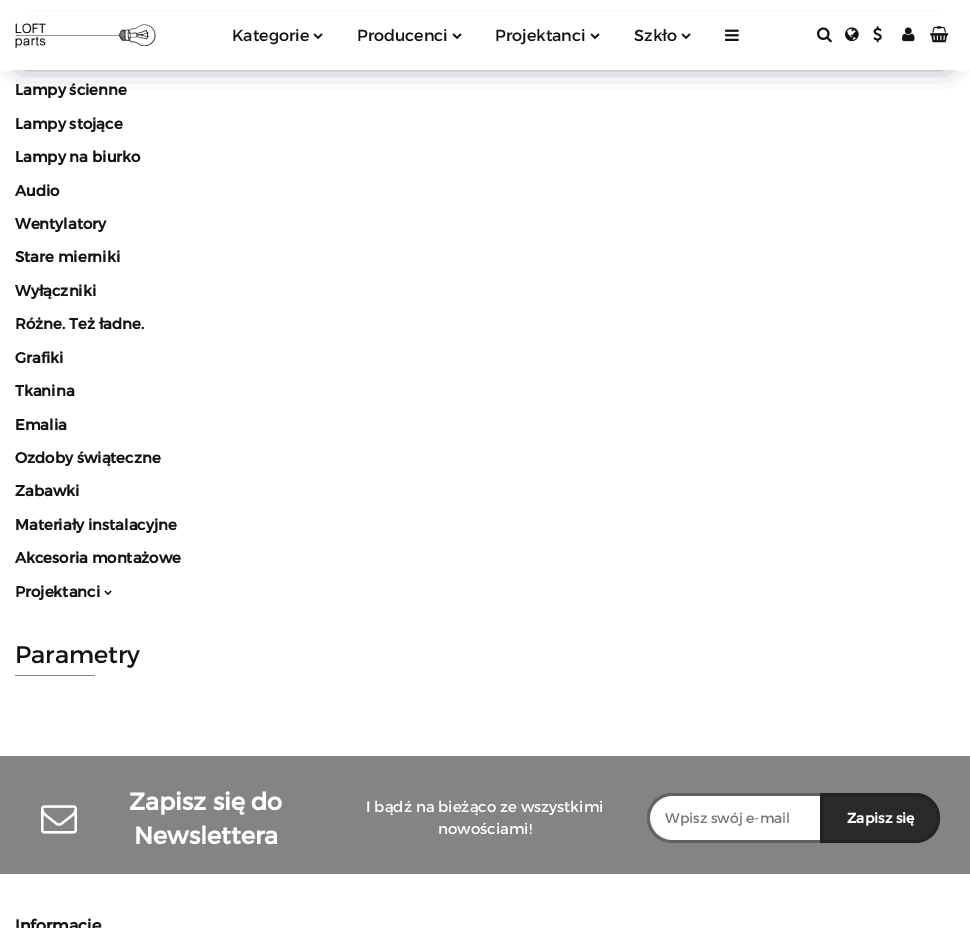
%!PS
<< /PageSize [970 928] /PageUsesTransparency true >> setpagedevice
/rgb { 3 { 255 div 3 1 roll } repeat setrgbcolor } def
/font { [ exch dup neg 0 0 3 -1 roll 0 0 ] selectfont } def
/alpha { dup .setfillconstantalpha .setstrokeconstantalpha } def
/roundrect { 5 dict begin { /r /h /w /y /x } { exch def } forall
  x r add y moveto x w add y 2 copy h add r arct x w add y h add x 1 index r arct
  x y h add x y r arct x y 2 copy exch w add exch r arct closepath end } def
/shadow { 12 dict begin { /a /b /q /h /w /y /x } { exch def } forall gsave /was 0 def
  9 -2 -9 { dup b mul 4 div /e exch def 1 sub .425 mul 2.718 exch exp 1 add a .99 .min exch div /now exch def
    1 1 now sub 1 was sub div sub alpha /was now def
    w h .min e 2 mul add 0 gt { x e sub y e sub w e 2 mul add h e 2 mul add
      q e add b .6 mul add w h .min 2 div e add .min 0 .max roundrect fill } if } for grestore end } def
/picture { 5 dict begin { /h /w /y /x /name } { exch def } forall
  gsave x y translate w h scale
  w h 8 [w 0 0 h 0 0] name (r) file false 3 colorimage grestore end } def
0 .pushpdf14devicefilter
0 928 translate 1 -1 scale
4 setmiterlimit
255 255 255 rgb
0 0 970 928 rectfill
66 68 90 rgb
22 38 924 24 0 12.5 1 shadow
255 255 255 rgb
0 11 970 59 rectfill
(img/1.rgb) 15 23 141 25 picture
(img/2.rgb) 313 33 10 7 picture
(img/2.rgb) 452 33 10 7 picture
(img/2.rgb) 590 33 10 7 picture
(img/2.rgb) 681 33 10 7 picture
(img/3.rgb) 725 29 14 12 picture
(img/4.rgb) 817 27 15 16 picture
(img/5.rgb) 845 27 14 15 picture
(img/6.rgb) 873 26 9 17 picture
(img/7.rgb) 902 27 13 15 picture
(img/8.rgb) 930 26 19 17 picture
(img/9.rgb) 104 590 8 6 picture
132 132 132 rgb
15 675 80 1 rectfill
0 756 970 118 rectfill
(img/10.rgb) 41 805 36 29 picture
255 255 255 rgb
672 796 moveto 820 796 lineto 820 840 lineto 672 840 lineto 660 840 650 830 650 818 curveto 650 806 660 796 672 796 curveto closepath fill
0.3 alpha
19 19 19 rgb
672 793 moveto 820 793 lineto 820 843 lineto 672 843 lineto 658 843 647 832 647 818 curveto 647 804 658 793 672 793 curveto closepath 672 796 moveto 820 796 lineto 820 840 lineto 672 840 lineto 660 840 650 830 650 818 curveto 650 806 660 796 672 796 curveto closepath eofill
1 alpha
42 42 42 rgb
820 793 moveto 915 793 lineto 929 793 940 804 940 818 curveto 940 832 929 843 915 843 curveto 820 843 lineto closepath fill
0.3 alpha
19 19 19 rgb
3 setlinewidth
821.5 794.5 moveto 915 794.5 lineto 928 794.5 938.5 805 938.5 818 curveto 938.5 831 928 841.5 915 841.5 curveto 821.5 841.5 lineto closepath stroke
/Montserrat-Regular 16 font
1 alpha
[
  [(Kategorie) 232 41]
  [(Producenci) 357 41]
  [(Projektanci) 495 41]
  [(Szkło) 634 41]
] { aload pop moveto show } forall
/Montserrat-Bold 15 font
[
  [(Lampy ścienne) 15 95]
  [(Lampy stojące) 15 129]
  [(Lampy na biurko) 15 162]
  [(Audio) 15 196]
  [(Wentylatory) 15 229]
  [(Stare mierniki) 15 262]
  [(Wyłączniki) 15 296]
  [(Różne. Też ładne.) 15 329]
  [(Grafiki) 15 363]
  [(Tkanina) 15 396]
  [(Emalia) 15 430]
  [(Ozdoby świąteczne) 15 463]
  [(Zabawki) 15 496]
  [(Materiały instalacyjne) 15 530]
  [(Akcesoria montażowe) 15 563]
  [(Projektanci) 15 597]
] { aload pop moveto show } forall
/Montserrat-Regular 24 font
15 663 moveto (Parametry) show
/Montserrat-Bold 24 font
255 255 255 rgb
129 810 moveto (Zapisz się do) show
134 844 moveto (Newslettera) show
/Montserrat-Regular 15 font
366 812 moveto (I bądź na bieżąco ze wszystkimi) show
438 834 moveto (nowościami!) show
/Montserrat-Regular 14 font
117 117 117 rgb
665 823 moveto (Wpisz swój e-mail) show
/Montserrat-Bold 14 font
255 255 255 rgb
847 823 moveto (Zapisz się) show
/Montserrat-Bold 16 font
19 19 19 rgb
15 931 moveto (Informacje) show
.poppdf14devicefilter showpage
